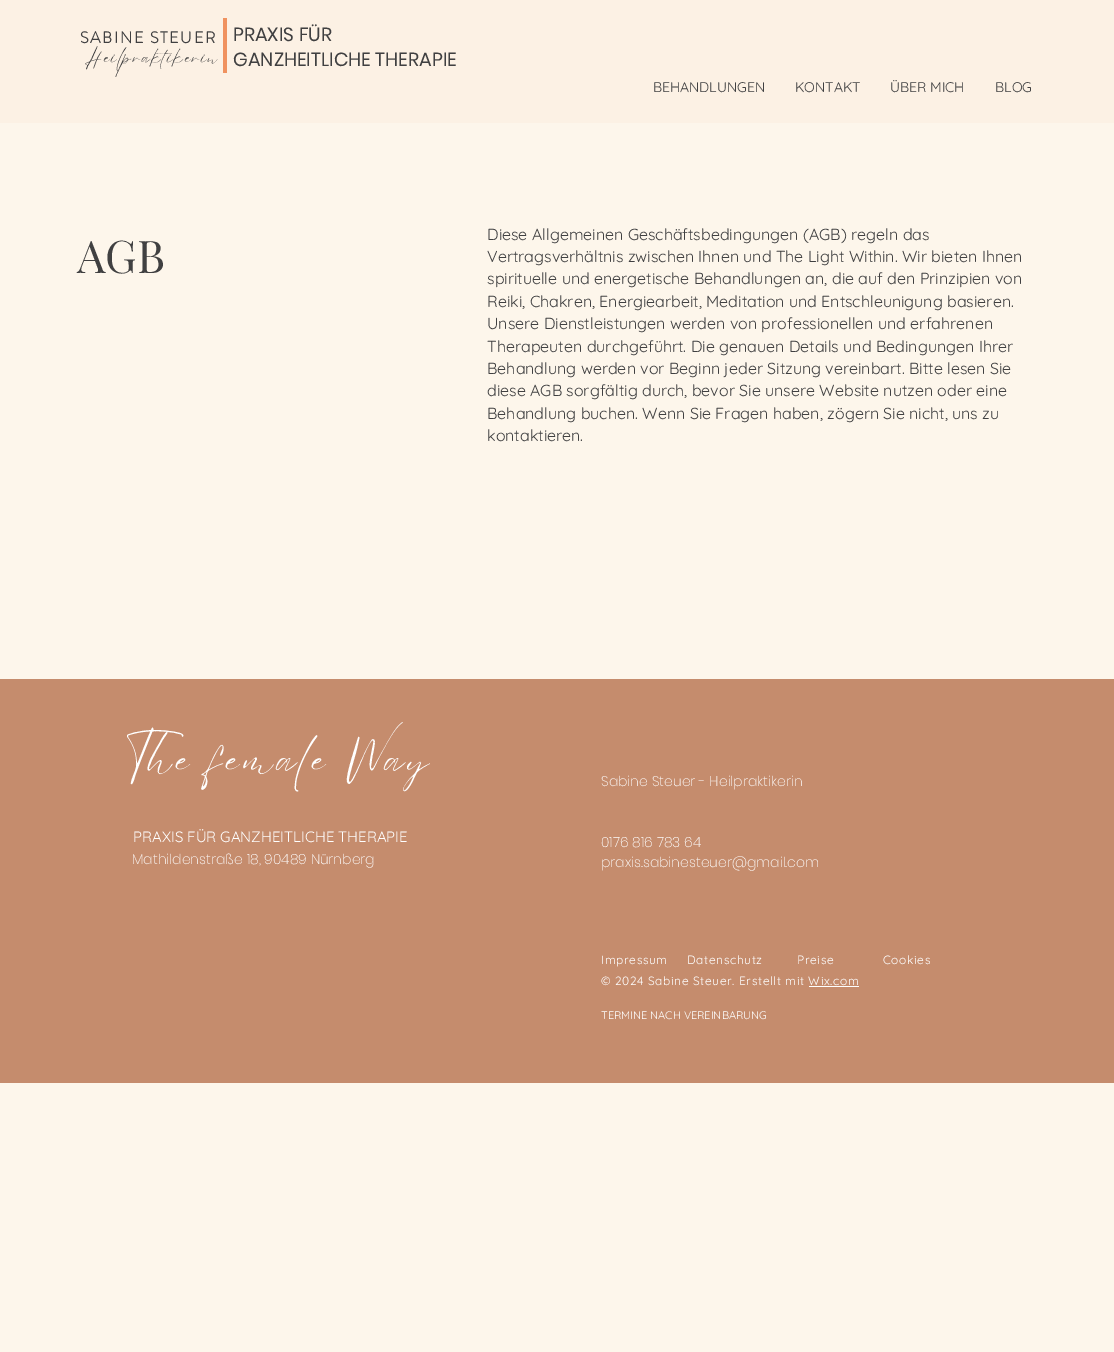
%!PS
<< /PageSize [1114 1352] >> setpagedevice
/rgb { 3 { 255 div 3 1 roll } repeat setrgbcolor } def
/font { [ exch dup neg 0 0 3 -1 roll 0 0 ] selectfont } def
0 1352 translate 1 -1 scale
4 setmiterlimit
253 246 235 rgb
0 0 1114 1352 rectfill
[
  [0 0 1114 123 252 241 228]
  [223 18 4 55 240 146 95]
  [0 679 1114 404 197 140 109]
  [809 986 50 1 255 255 255]
] { aload pop rgb rectfill } forall
/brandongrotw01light-Bold 16 font
64 64 65 rgb
80 43 moveto 1.6 0 (SABINE STEUER) ashow
/Poppins-Regular 19 font
233 41 moveto (PRAXIS FÜR) show
233 66 moveto (GANZHEITLICHE THERAPIE) show
/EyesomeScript-Regular 17 font
84 62 moveto 1.75 0 (Heilpraktikerin) ashow
/Quicksand-Regular 14 font
[
  [(BEHANDLUNGEN) 653 92]
  [(KONTAKT) 795 92]
  [(ÜBER MICH) 890 92]
  [(BLOG) 995 92]
] { aload pop moveto show } forall
/PlayfairDisplay-Regular 45 font
77 273 moveto (AGB) show
/Quicksand-Regular 16 font
[
  [(Diese Allgemeinen Geschäftsbedingungen \(AGB\) regeln das) 487 240]
  [(Vertragsverhältnis zwischen Ihnen und The Light Within. Wir bieten Ihnen) 487 262]
  [(spirituelle und energetische Behandlungen an, die auf den Prinzipien von) 487 284]
  [(Reiki, Chakren, Energiearbeit, Meditation und Entschleunigung basieren.) 487 307]
  [(Unsere Dienstleistungen werden von professionellen und erfahrenen) 487 329]
  [(Therapeuten durchgeführt. Die genauen Details und Bedingungen Ihrer) 487 352]
  [(Behandlung werden vor Beginn jeder Sitzung vereinbart. Bitte lesen Sie) 487 374]
  [(diese AGB sorgfältig durch, bevor Sie unsere Website nutzen oder eine) 487 396]
  [(Behandlung buchen. Wenn Sie Fragen haben, zögern Sie nicht, uns zu) 487 419]
  [(kontaktieren.) 487 441]
] { aload pop moveto show } forall
/EyesomeScript-Regular 40 font
255 255 255 rgb
125 770 moveto 4 0 (The female Way) ashow
/Poppins-ExtraLight 14 font
601 786 moveto (Sabine Steuer - Heilpraktikerin) show
/Quicksand-Regular 15 font
133 842 moveto (PRAXIS FÜR GANZHEITLICHE THERAPIE) show
/Poppins-ExtraLight 14 font
[
  [(0176 816 783 64) 601 847]
  [(praxis.sabinesteuer@gmail.com) 601 867]
  [(Mathildenstraße 18, 90489 Nürnberg) 132 864]
] { aload pop moveto show } forall
/Quicksand-Regular 12 font
601 964 moveto 0.6 0 (Impressum) ashow
687 964 moveto 0.6 0 (Datenschutz) ashow
797 964 moveto 0.6 0 (Preise) ashow
883 964 moveto 0.6 0 (Cookies) ashow
601 985 moveto 0.6 0 (© 2024 Sabine Steuer. Erstellt mit Wix.com) ashow
/Quicksand-Regular 11 font
601 1019 moveto (TERMINE NACH VEREINBARUNG) show
showpage
